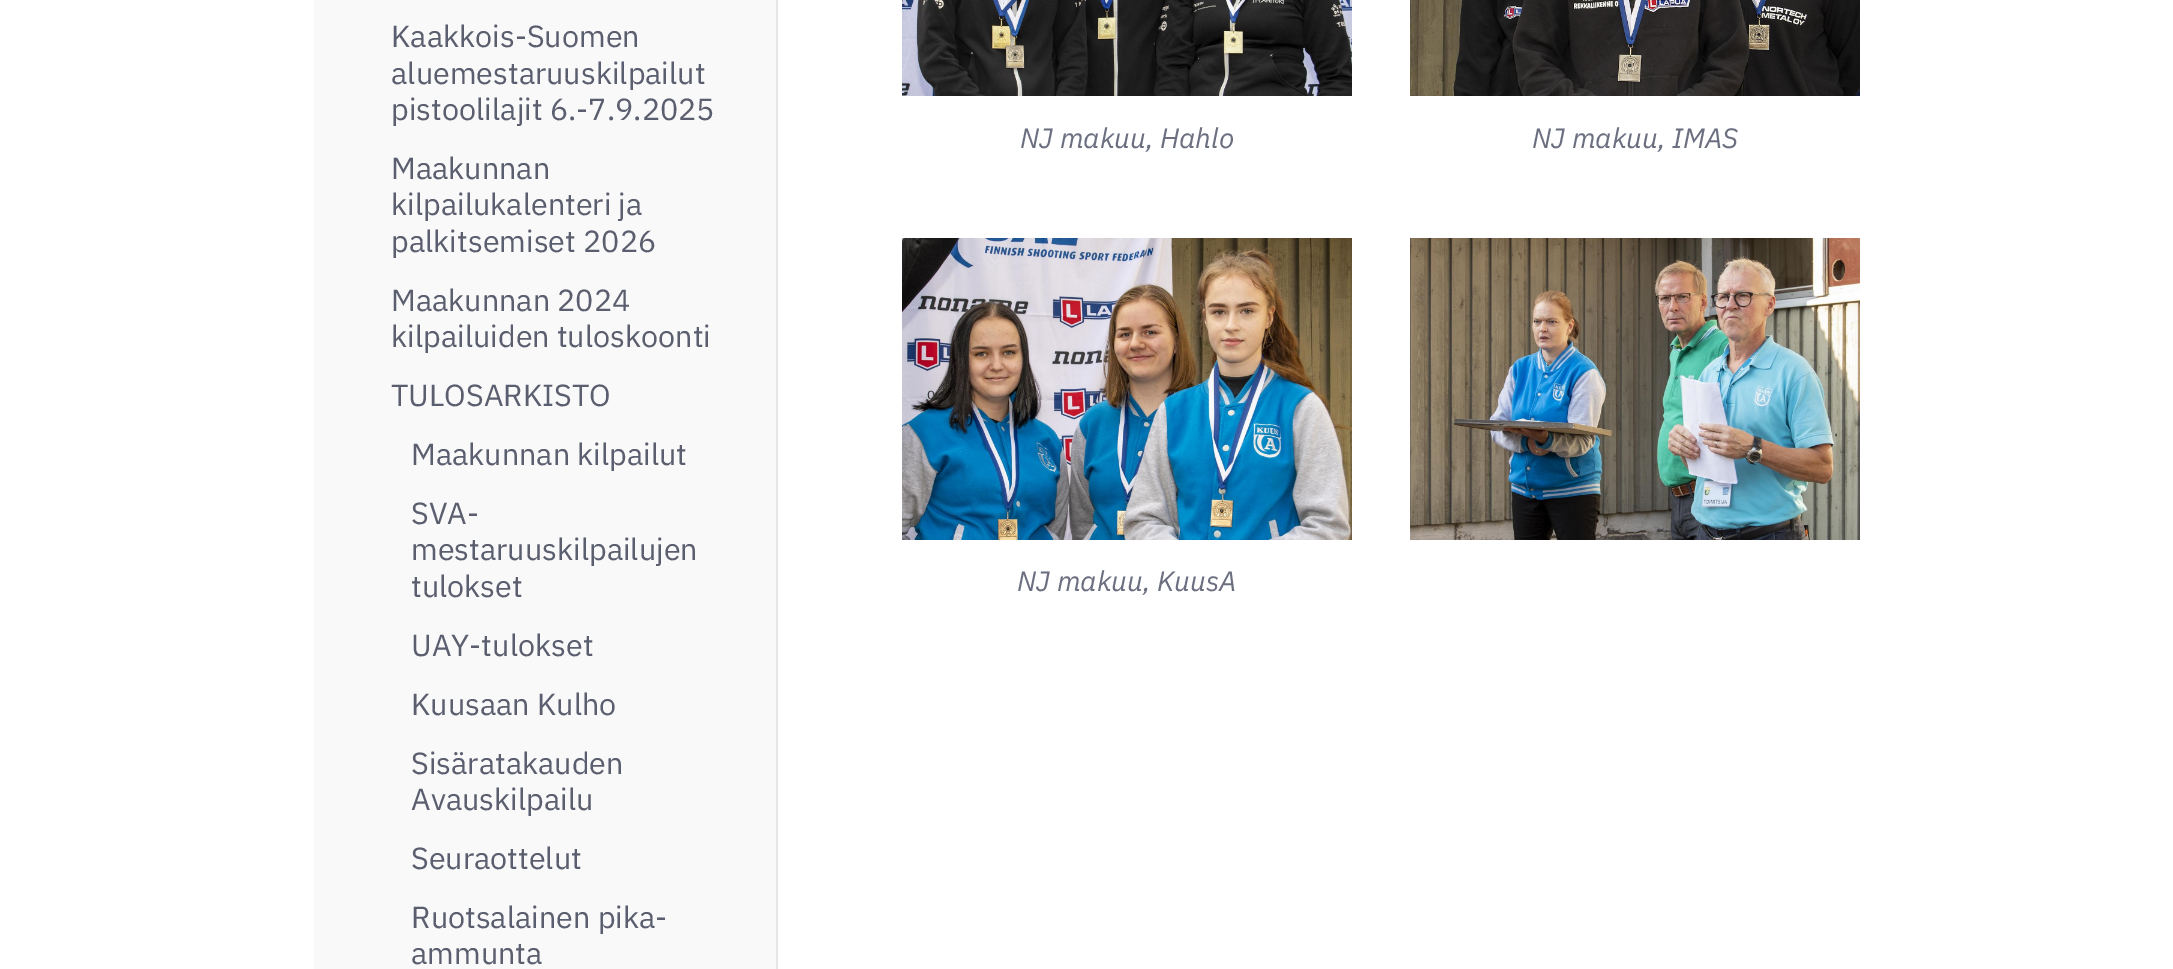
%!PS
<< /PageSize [2173 969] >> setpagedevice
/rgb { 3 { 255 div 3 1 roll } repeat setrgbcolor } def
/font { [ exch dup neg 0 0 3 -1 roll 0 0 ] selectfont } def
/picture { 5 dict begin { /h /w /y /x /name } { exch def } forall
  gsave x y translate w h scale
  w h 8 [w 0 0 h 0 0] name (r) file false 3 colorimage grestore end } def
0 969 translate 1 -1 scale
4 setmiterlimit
255 255 255 rgb
0 0 2173 969 rectfill
249 249 249 rgb
314 0 462 969 rectfill
230 230 230 rgb
776 0 2 969 rectfill
(img/1.rgb) 902 0 450 96 picture
(img/2.rgb) 1410 0 450 96 picture
(img/3.rgb) 1410 238 450 302 picture
(img/4.rgb) 902 238 450 302 picture
/IBMPlexSans-Regular 30.5 font
90 94 110 rgb
[
  [(Kaakkois-Suomen) 391 47]
  [(aluemestaruuskilpailut) 391 84]
  [(pistoolilajit 6.-7.9.2025) 391 120]
  [(Maakunnan) 391 179]
  [(kilpailukalenteri ja) 391 215]
  [(palkitsemiset 2026) 391 252]
  [(Maakunnan 2024) 391 311]
  [(kilpailuiden tuloskoonti) 391 347]
  [(TULOSARKISTO) 391 406]
  [(Maakunnan kilpailut) 411 465]
  [(SVA-) 411 524]
  [(mestaruuskilpailujen) 411 560]
  [(tulokset) 411 597]
  [(UAY-tulokset) 411 656]
  [(Kuusaan Kulho) 411 715]
  [(Sisäratakauden) 411 774]
  [(Avauskilpailu) 411 810]
  [(Seuraottelut) 411 869]
  [(Ruotsalainen pika-) 411 928]
  [(ammunta) 411 964]
] { aload pop moveto show } forall
/IBMPlexSans-Italic 28 font
107 111 128 rgb
[
  [(NJ makuu, Hahlo) 1020 148]
  [(NJ makuu, IMAS) 1532 148]
  [(NJ makuu, KuusA) 1017 591]
] { aload pop moveto show } forall
showpage
